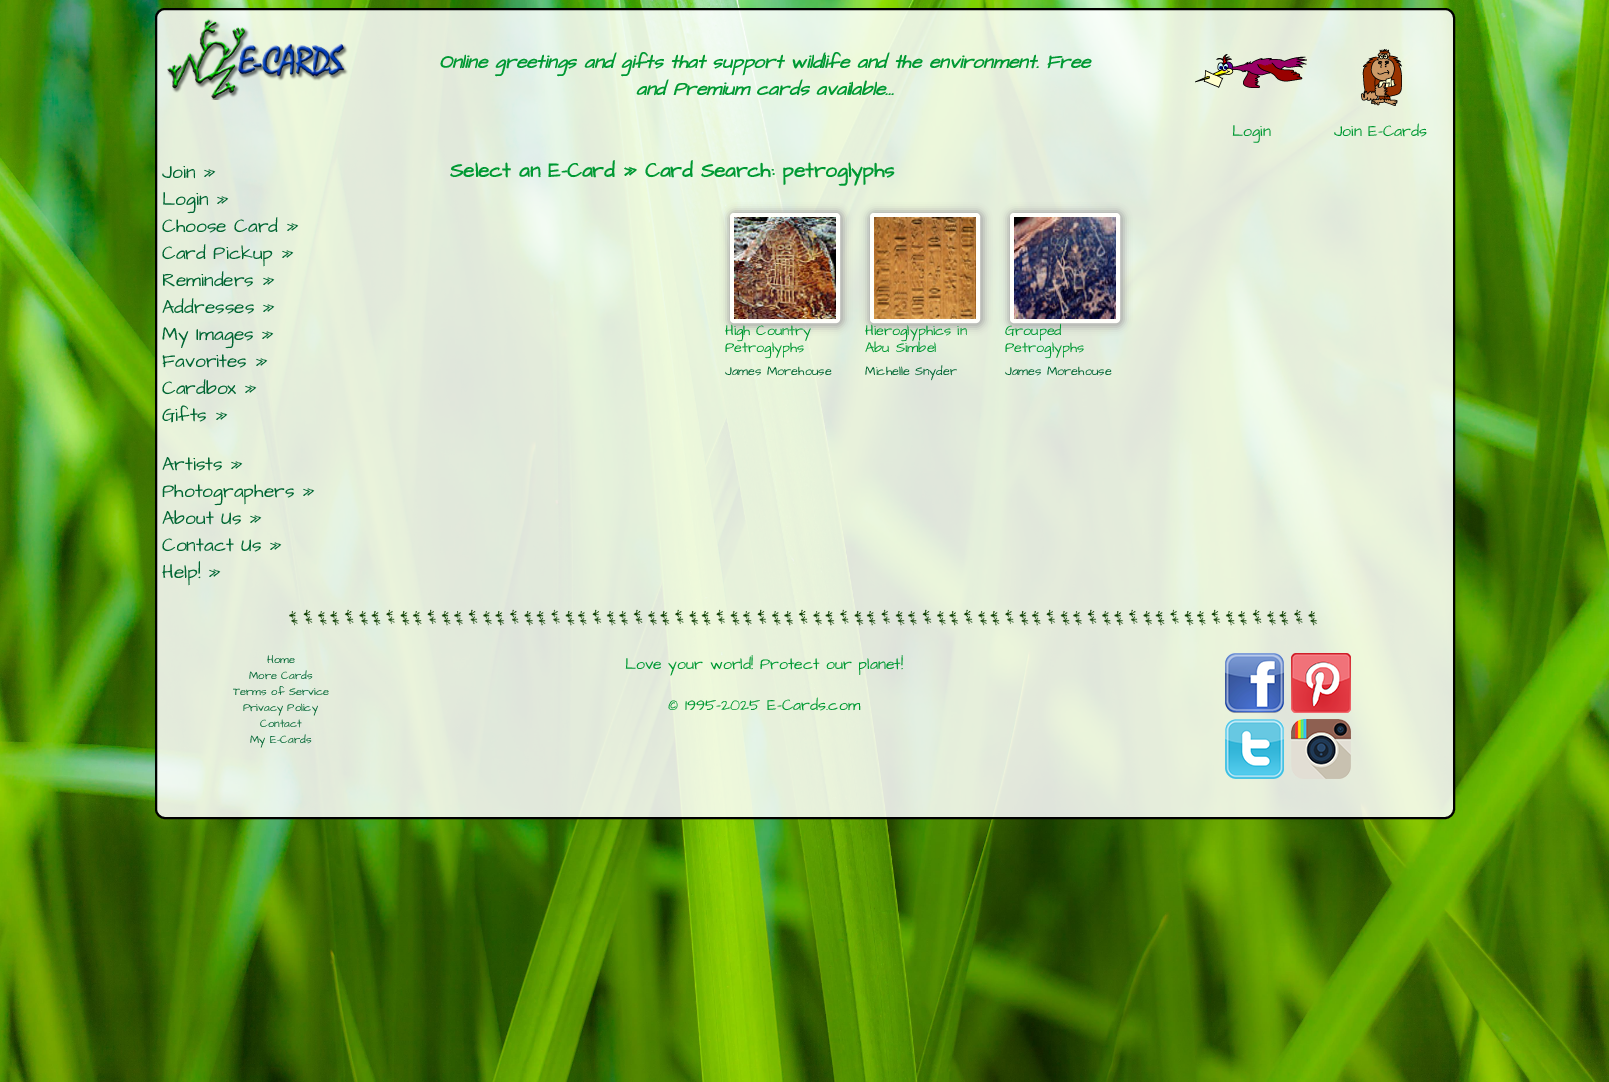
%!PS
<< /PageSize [1609 1082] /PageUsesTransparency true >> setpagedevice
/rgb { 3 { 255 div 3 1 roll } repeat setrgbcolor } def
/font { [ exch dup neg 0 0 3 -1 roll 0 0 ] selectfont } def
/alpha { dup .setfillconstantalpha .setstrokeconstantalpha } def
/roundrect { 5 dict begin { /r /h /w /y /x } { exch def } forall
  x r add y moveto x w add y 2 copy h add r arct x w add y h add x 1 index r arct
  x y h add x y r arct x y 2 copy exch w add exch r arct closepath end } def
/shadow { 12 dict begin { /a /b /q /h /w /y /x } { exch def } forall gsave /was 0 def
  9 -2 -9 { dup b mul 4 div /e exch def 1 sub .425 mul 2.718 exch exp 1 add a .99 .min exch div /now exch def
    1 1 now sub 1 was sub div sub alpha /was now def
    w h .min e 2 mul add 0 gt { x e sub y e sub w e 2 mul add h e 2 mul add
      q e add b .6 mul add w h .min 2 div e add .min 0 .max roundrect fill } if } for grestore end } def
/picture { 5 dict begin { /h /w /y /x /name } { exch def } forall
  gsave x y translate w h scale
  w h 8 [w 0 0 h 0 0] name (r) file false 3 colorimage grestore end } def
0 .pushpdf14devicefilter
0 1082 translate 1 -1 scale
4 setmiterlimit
255 255 255 rgb
0 0 1609 1082 rectfill
(img/1.rgb) 0 0 1609 1082 picture
0.86 alpha
156 9 1298 809 9 roundrect fill
1 alpha
0 0 0 rgb
2 setlinewidth
156 9 1298 809 9 roundrect stroke
(img/2.rgb) 167 18 181 82 picture
(img/3.rgb) 1195 54 112 34 picture
(img/4.rgb) 1361 49 41 57 picture
170 170 170 rgb
728 211 116 116 7 4 1 shadow
255 255 251 rgb
4 setlinewidth
732 215 106 106 2 roundrect stroke
(img/5.rgb) 734 217 102 102 picture
170 170 170 rgb
868 211 116 116 7 4 1 shadow
255 255 251 rgb
872 215 106 106 2 roundrect stroke
(img/6.rgb) 874 217 102 102 picture
170 170 170 rgb
1008 211 116 116 7 4 1 shadow
255 255 251 rgb
1012 215 106 106 2 roundrect stroke
(img/7.rgb) 1014 217 102 102 picture
(img/8.rgb) 289 609 1029 17 picture
(img/9.rgb) 1225 653 59 60 picture
(img/10.rgb) 1291 653 60 60 picture
(img/11.rgb) 1225 719 59 60 picture
(img/12.rgb) 1291 719 60 60 picture
/ArchitectsDaughter-BoldItalic 19.2 font
0 153 51 rgb
439 68 moveto (Online greetings and gifts that support wildlife and the environment. Free) show
636 95 moveto (and Premium cards available...) show
/ArchitectsDaughter-Regular 16 font
1232 136 moveto (Login) show
1334 136 moveto (Join E-Cards) show
/ArchitectsDaughter-Regular 19.2 font
0 102 51 rgb
[
  [(Join ») 162 178]
  [(Login ») 162 205]
  [(Choose Card ») 162 232]
  [(Card Pickup ») 162 259]
  [(Reminders ») 162 286]
  [(Addresses ») 162 313]
  [(My Images ») 162 340]
  [(Favorites ») 162 367]
  [(Cardbox ») 162 394]
  [(Gifts ») 162 421]
  [(Artists ») 162 470]
  [(Photographers ») 162 497]
  [(About Us ») 162 524]
  [(Contact Us ») 162 551]
  [(Help! ») 162 578]
] { aload pop moveto show } forall
/ArchitectsDaughter-Bold 20.8 font
0 153 51 rgb
450 177 moveto (Select an E-Card » Card Search: petroglyphs) show
/ArchitectsDaughter-Regular 14.5 font
725 335 moveto (High Country) show
725 352 moveto (Petroglyphs) show
/ArchitectsDaughter-Regular 12.75 font
0 102 51 rgb
725 375 moveto (James Morehouse) show
/ArchitectsDaughter-Regular 14.5 font
0 153 51 rgb
865 335 moveto (Hieroglyphics in) show
865 352 moveto (Abu Simbel) show
/ArchitectsDaughter-Regular 12.75 font
0 102 51 rgb
865 375 moveto (Michelle Snyder) show
/ArchitectsDaughter-Regular 14.5 font
0 153 51 rgb
1005 335 moveto (Grouped) show
1005 352 moveto (Petroglyphs) show
/ArchitectsDaughter-Regular 12.75 font
0 102 51 rgb
1005 375 moveto (James Morehouse) show
/ArchitectsDaughter-Regular 11.25 font
[
  [(Home) 267 663]
  [(More Cards) 249 679]
  [(Terms of Service) 233 695]
  [(Privacy Policy) 243 711]
  [(Contact) 260 727]
  [(My E-Cards) 250 743]
] { aload pop moveto show } forall
/ArchitectsDaughter-Regular 16 font
0 153 51 rgb
625 669 moveto (Love your world! Protect our planet!) show
668 710 moveto (© 1995-2025 E-Cards.com) show
.poppdf14devicefilter showpage
